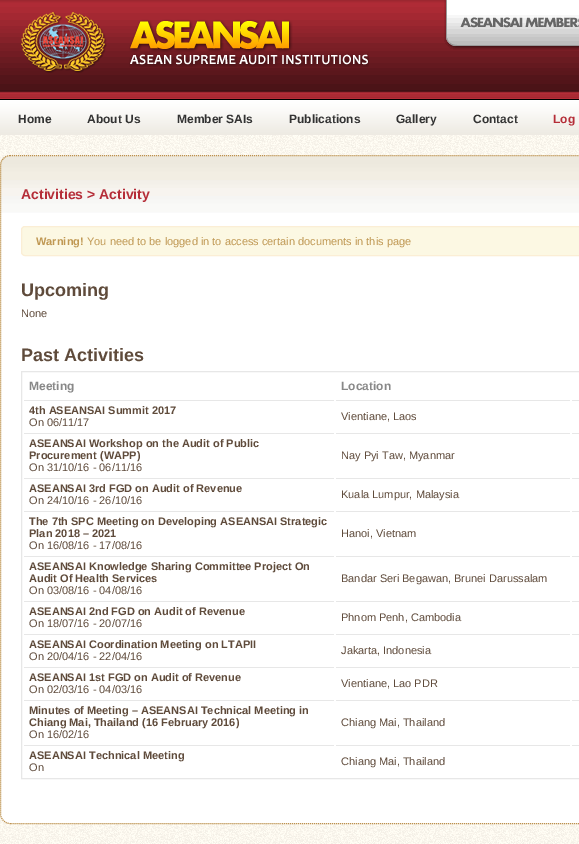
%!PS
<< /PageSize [579 844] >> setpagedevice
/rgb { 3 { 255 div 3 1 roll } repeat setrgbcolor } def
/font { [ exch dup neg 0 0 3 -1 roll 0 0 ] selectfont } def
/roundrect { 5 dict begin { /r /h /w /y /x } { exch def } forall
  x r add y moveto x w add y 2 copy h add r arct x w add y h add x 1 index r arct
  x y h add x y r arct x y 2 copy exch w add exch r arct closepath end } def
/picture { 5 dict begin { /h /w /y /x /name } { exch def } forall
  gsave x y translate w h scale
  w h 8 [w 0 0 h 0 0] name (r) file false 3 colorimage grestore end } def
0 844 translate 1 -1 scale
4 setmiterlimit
255 255 255 rgb
0 0 579 844 rectfill
(img/1.rgb) 0 135 579 709 picture
(img/2.rgb) 0 0 579 99 picture
(img/3.rgb) 21 12 86 61 picture
(img/4.rgb) 129 19 240 48 picture
(img/5.rgb) 444 0 135 50 picture
(img/6.rgb) 0 100 579 35 picture
0 0 0 rgb
0 99 579 1 rectfill
255 255 255 rgb
0 155 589 669 10 roundrect fill
(img/7.rgb) 0 156 579 57 picture
189 145 76 rgb
[1 1] 0 setdash
10 155.5 moveto 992 155.5 lineto 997 155.5 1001.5 160 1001.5 165 curveto 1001.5 814 lineto 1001.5 819 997 823.5 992 823.5 curveto 10 823.5 lineto 5 823.5 0.5 819 0.5 814 curveto 0.5 165 lineto 0.5 160 5 155.5 10 155.5 curveto closepath stroke
252 248 227 rgb
21.5 226.5 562 29 3.5 roundrect gsave fill grestore
251 238 213 rgb
[] 0 setdash
stroke
231 231 231 rgb
21.5 371.5 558 407 rectstroke
[
  [572 400 7 1 231 231 231]
  [24 400 310 1 231 231 231]
  [336 400 234 1 231 231 231]
  [572 433 7 1 231 231 231]
  [24 433 310 1 231 231 231]
  [336 433 234 1 231 231 231]
  [572 478 7 1 231 231 231]
  [24 478 310 1 231 231 231]
  [336 478 234 1 231 231 231]
  [572 511 7 1 231 231 231]
  [24 511 310 1 231 231 231]
  [336 511 234 1 231 231 231]
  [572 556 7 1 231 231 231]
  [24 556 310 1 231 231 231]
  [336 556 234 1 231 231 231]
  [572 601 7 1 231 231 231]
  [24 601 310 1 231 231 231]
  [336 601 234 1 231 231 231]
  [572 634 7 1 231 231 231]
  [24 634 310 1 231 231 231]
  [336 634 234 1 231 231 231]
  [572 667 7 1 231 231 231]
  [24 667 310 1 231 231 231]
  [336 667 234 1 231 231 231]
  [572 700 7 1 231 231 231]
  [24 700 310 1 231 231 231]
  [336 700 234 1 231 231 231]
  [572 745 7 1 231 231 231]
  [24 745 310 1 231 231 231]
  [336 745 234 1 231 231 231]
] { aload pop rgb rectfill } forall
/LiberationSans-Bold 12 font
51 51 51 rgb
[
  [(Home) 18 123]
  [(About Us) 87 123]
  [(Member SAIs) 177 123]
  [(Publications) 289 123]
  [(Gallery) 396 123]
  [(Contact) 473 123]
] { aload pop moveto show } forall
181 45 56 rgb
553 123 moveto (Log) show
/LiberationSans-Bold 14 font
21 199 moveto (Activities > Activity) show
/LiberationSans-Bold 11 font
192 152 83 rgb
36 245 moveto (Warning!) show
/LiberationSans-Regular 11 font
87 245 moveto (You need to be logged in to access certain documents in this page) show
/LiberationSans-Bold 18 font
95 75 59 rgb
21 296 moveto (Upcoming) show
/LiberationSans-Regular 11 font
21 317 moveto (None) show
/LiberationSans-Bold 18 font
21 361 moveto (Past Activities) show
/LiberationSans-Bold 12 font
136 136 136 rgb
29 390 moveto (Meeting) show
341 390 moveto (Location) show
/LiberationSans-Bold 11 font
95 75 59 rgb
29 414 moveto (4th ASEANSAI Summit 2017) show
/LiberationSans-Regular 11 font
29 426 moveto (On 06/11/17) show
341 420 moveto (Vientiane, Laos) show
/LiberationSans-Bold 11 font
29 447 moveto (ASEANSAI Workshop on the Audit of Public) show
29 459 moveto (Procurement \(WAPP\)) show
/LiberationSans-Regular 11 font
29 471 moveto (On 31/10/16 - 06/11/16) show
341 459 moveto (Nay Pyi Taw, Myanmar) show
/LiberationSans-Bold 11 font
29 492 moveto (ASEANSAI 3rd FGD on Audit of Revenue) show
/LiberationSans-Regular 11 font
29 504 moveto (On 24/10/16 - 26/10/16) show
341 498 moveto (Kuala Lumpur, Malaysia) show
/LiberationSans-Bold 11 font
29 525 moveto (The 7th SPC Meeting on Developing ASEANSAI Strategic) show
29 537 moveto (Plan 2018 – 2021) show
/LiberationSans-Regular 11 font
29 549 moveto (On 16/08/16 - 17/08/16) show
341 537 moveto (Hanoi, Vietnam) show
/LiberationSans-Bold 11 font
29 570 moveto (ASEANSAI Knowledge Sharing Committee Project On) show
29 582 moveto (Audit Of Health Services) show
/LiberationSans-Regular 11 font
29 594 moveto (On 03/08/16 - 04/08/16) show
341 582 moveto (Bandar Seri Begawan, Brunei Darussalam) show
/LiberationSans-Bold 11 font
29 615 moveto (ASEANSAI 2nd FGD on Audit of Revenue) show
/LiberationSans-Regular 11 font
29 627 moveto (On 18/07/16 - 20/07/16) show
341 621 moveto (Phnom Penh, Cambodia) show
/LiberationSans-Bold 11 font
29 648 moveto (ASEANSAI Coordination Meeting on LTAPII) show
/LiberationSans-Regular 11 font
29 660 moveto (On 20/04/16 - 22/04/16) show
341 654 moveto (Jakarta, Indonesia) show
/LiberationSans-Bold 11 font
29 681 moveto (ASEANSAI 1st FGD on Audit of Revenue) show
/LiberationSans-Regular 11 font
29 693 moveto (On 02/03/16 - 04/03/16) show
341 687 moveto (Vientiane, Lao PDR) show
/LiberationSans-Bold 11 font
29 714 moveto (Minutes of Meeting – ASEANSAI Technical Meeting in) show
29 726 moveto (Chiang Mai, Thailand \(16 February 2016\)) show
/LiberationSans-Regular 11 font
29 738 moveto (On 16/02/16) show
341 726 moveto (Chiang Mai, Thailand) show
/LiberationSans-Bold 11 font
29 759 moveto (ASEANSAI Technical Meeting) show
/LiberationSans-Regular 11 font
29 771 moveto (On) show
341 765 moveto (Chiang Mai, Thailand) show
showpage
